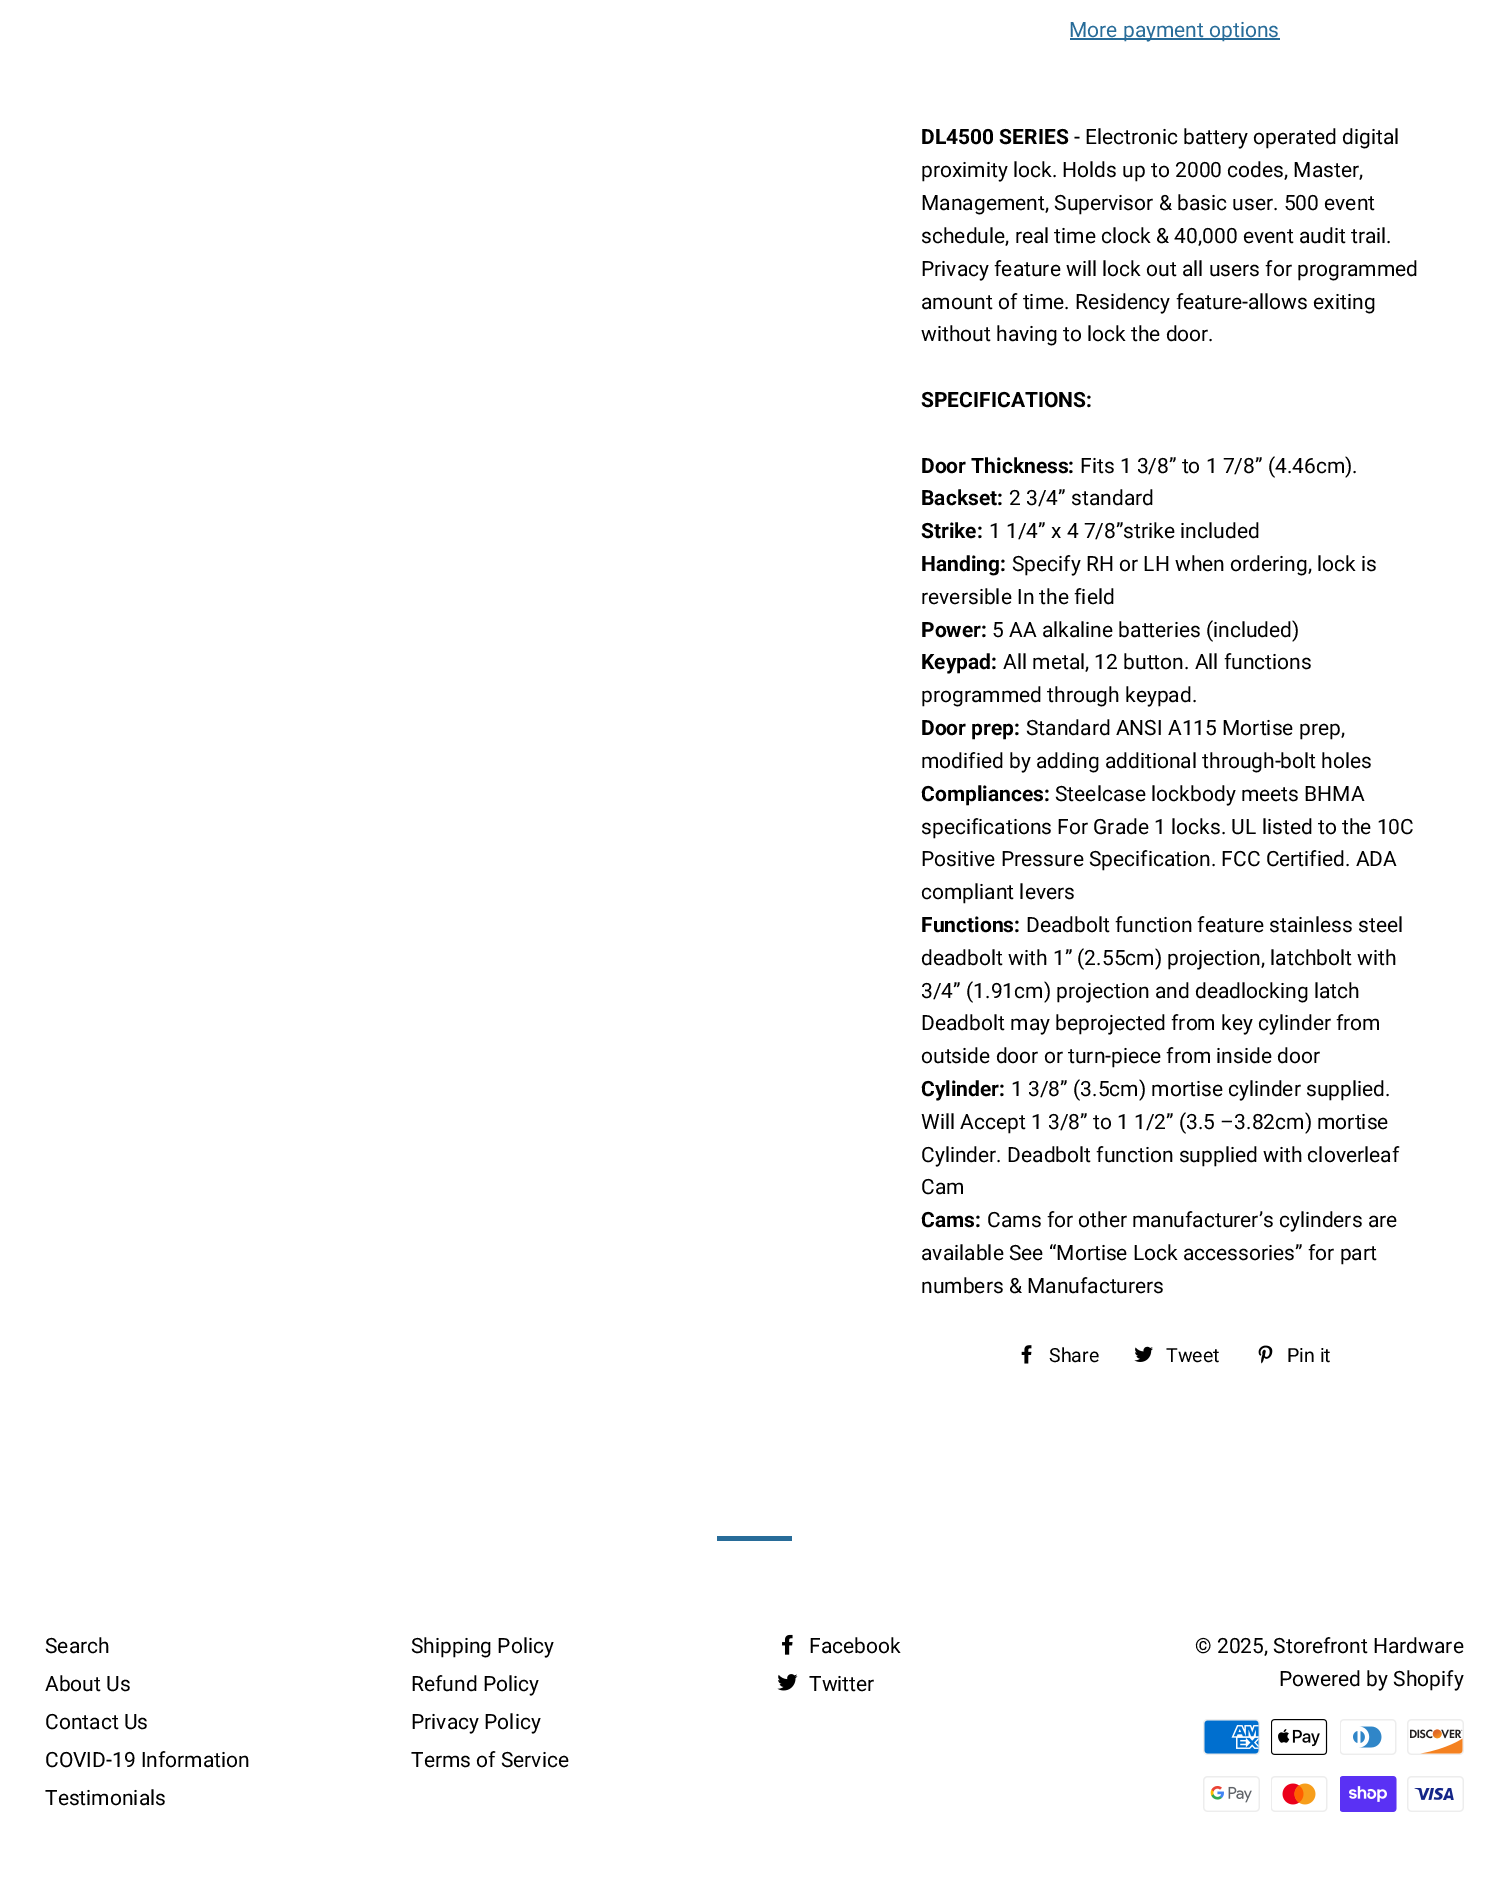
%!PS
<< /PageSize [1509 1882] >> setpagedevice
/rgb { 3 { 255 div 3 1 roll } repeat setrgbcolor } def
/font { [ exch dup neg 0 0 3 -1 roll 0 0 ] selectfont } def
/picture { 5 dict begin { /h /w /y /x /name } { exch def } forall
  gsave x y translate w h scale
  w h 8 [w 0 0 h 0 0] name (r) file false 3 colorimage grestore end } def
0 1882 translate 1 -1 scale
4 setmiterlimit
255 255 255 rgb
0 0 1509 1882 rectfill
40 108 153 rgb
1070 38 210 2 rectfill
(img/1.rgb) 1021 1345 11 19 picture
(img/2.rgb) 1134 1346 19 16 picture
(img/3.rgb) 1258 1345 15 19 picture
717 1536 75 5 rectfill
(img/4.rgb) 782 1634 11 21 picture
(img/5.rgb) 777 1674 21 17 picture
(img/6.rgb) 1203 1719 57 36 picture
(img/7.rgb) 1271 1719 57 36 picture
(img/8.rgb) 1340 1719 57 36 picture
(img/9.rgb) 1407 1719 57 36 picture
(img/10.rgb) 1203 1776 57 36 picture
(img/11.rgb) 1271 1776 57 36 picture
(img/12.rgb) 1340 1776 57 36 picture
(img/13.rgb) 1407 1776 57 36 picture
/Roboto-Regular 21 font
1069 37 moveto (More payment options) show
/Roboto-Bold 21 font
0 0 0 rgb
921 144 moveto (DL4500 SERIES) show
/Roboto-Regular 21 font
[
  [(- Electronic battery operated digital) 1074 144]
  [(proximity lock. Holds up to 2000 codes, Master,) 921 177]
  [(Management, Supervisor & basic user. 500 event) 921 210]
  [(schedule, real time clock & 40,000 event audit trail.) 921 243]
  [(Privacy feature will lock out all users for programmed) 921 276]
  [(amount of time. Residency feature-allows exiting) 921 309]
  [(without having to lock the door.) 921 341]
] { aload pop moveto show } forall
/Roboto-Bold 21 font
921 407 moveto (SPECIFICATIONS:) show
921 473 moveto (Door Thickness:) show
/Roboto-Regular 21 font
1080 473 moveto (Fits 1 3/8” to 1 7/8” \(4.46cm\).) show
/Roboto-Bold 21 font
921 505 moveto (Backset:) show
/Roboto-Regular 21 font
1009 505 moveto (2 3/4” standard) show
/Roboto-Bold 21 font
921 538 moveto (Strike:) show
/Roboto-Regular 21 font
989 538 moveto (1 1/4” x 4 7/8”strike included) show
/Roboto-Bold 21 font
921 571 moveto (Handing:) show
/Roboto-Regular 21 font
1012 571 moveto (Specify RH or LH when ordering, lock is) show
921 604 moveto (reversible In the field) show
/Roboto-Bold 21 font
921 637 moveto (Power:) show
/Roboto-Regular 21 font
992 637 moveto (5 AA alkaline batteries \(included\)) show
/Roboto-Bold 21 font
921 669 moveto (Keypad:) show
/Roboto-Regular 21 font
1003 669 moveto (All metal, 12 button. All functions) show
921 702 moveto (programmed through keypad.) show
/Roboto-Bold 21 font
921 735 moveto (Door prep:) show
/Roboto-Regular 21 font
1026 735 moveto (Standard ANSI A115 Mortise prep,) show
921 768 moveto (modified by adding additional through-bolt holes) show
/Roboto-Bold 21 font
921 801 moveto (Compliances:) show
/Roboto-Regular 21 font
[
  [(Steelcase lockbody meets BHMA) 1055 801]
  [(specifications For Grade 1 locks. UL listed to the 10C) 921 834]
  [(Positive Pressure Specification. FCC Certified. ADA) 921 866]
  [(compliant levers) 921 899]
] { aload pop moveto show } forall
/Roboto-Bold 21 font
921 932 moveto (Functions:) show
/Roboto-Regular 21 font
[
  [(Deadbolt function feature stainless steel) 1026 932]
  [(deadbolt with 1” \(2.55cm\) projection, latchbolt with) 921 965]
  [(3/4” \(1.91cm\) projection and deadlocking latch) 921 998]
  [(Deadbolt may beprojected from key cylinder from) 921 1030]
  [(outside door or turn-piece from inside door) 921 1063]
] { aload pop moveto show } forall
/Roboto-Bold 21 font
921 1096 moveto (Cylinder:) show
/Roboto-Regular 21 font
[
  [(1 3/8” \(3.5cm\) mortise cylinder supplied.) 1011 1096]
  [(Will Accept 1 3/8” to 1 1/2” \(3.5 –3.82cm\) mortise) 921 1129]
  [(Cylinder. Deadbolt function supplied with cloverleaf) 921 1162]
  [(Cam) 921 1194]
] { aload pop moveto show } forall
/Roboto-Bold 21 font
921 1227 moveto (Cams:) show
/Roboto-Regular 21 font
[
  [(Cams for other manufacturer’s cylinders are) 987 1227]
  [(available See “Mortise Lock accessories” for part) 921 1260]
  [(numbers & Manufacturers) 921 1293]
] { aload pop moveto show } forall
/Roboto-Regular 19.5 font
[
  [(Share) 1049 1362]
  [(Tweet) 1166 1362]
  [(Pin it) 1287 1362]
] { aload pop moveto show } forall
/Roboto-Regular 21 font
[
  [(Search) 45 1653]
  [(About Us) 45 1691]
  [(Contact Us) 45 1729]
  [(COVID-19 Information) 45 1767]
  [(Testimonials) 45 1805]
  [(Shipping Policy) 411 1653]
  [(Refund Policy) 411 1691]
  [(Privacy Policy) 411 1729]
  [(Terms of Service) 411 1767]
  [(Facebook) 809 1653]
  [(Twitter) 809 1691]
  [(© 2025, Storefront Hardware) 1195 1653]
  [(Powered by Shopify) 1279 1686]
] { aload pop moveto show } forall
showpage
